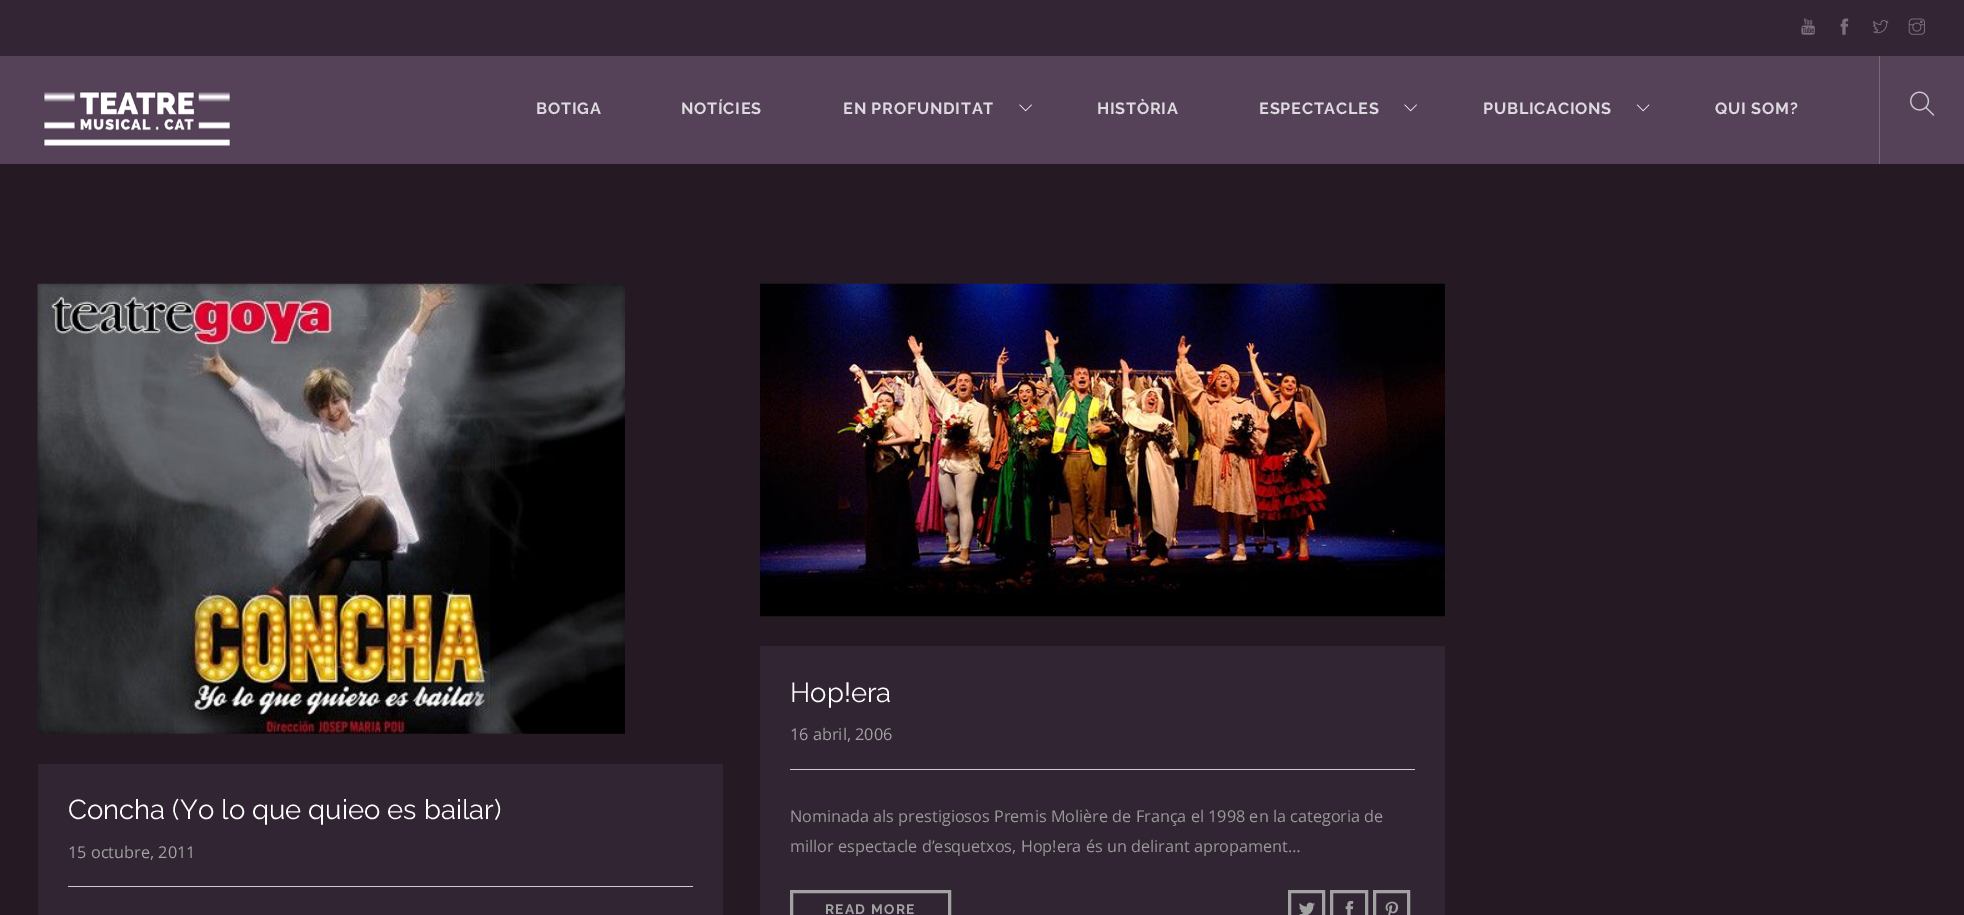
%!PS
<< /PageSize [1964 915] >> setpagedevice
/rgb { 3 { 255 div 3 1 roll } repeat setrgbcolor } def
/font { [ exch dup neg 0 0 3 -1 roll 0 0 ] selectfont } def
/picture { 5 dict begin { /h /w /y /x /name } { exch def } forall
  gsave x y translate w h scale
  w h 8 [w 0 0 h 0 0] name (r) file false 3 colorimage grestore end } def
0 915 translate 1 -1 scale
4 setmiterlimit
37 25 36 rgb
0 0 1964 915 rectfill
85 66 89 rgb
0 56 1964 108 rectfill
51 37 52 rgb
0 0 1964 56 rectfill
(img/1.rgb) 1801 18 14 17 picture
(img/2.rgb) 1840 18 9 17 picture
(img/3.rgb) 1872 20 17 14 picture
(img/4.rgb) 1908 18 17 17 picture
(img/5.rgb) 43 91 188 55 picture
(img/6.rgb) 1019 104 13 8 picture
(img/6.rgb) 1404 104 13 8 picture
(img/7.rgb) 1636 104 14 8 picture
119 104 122 rgb
1879 56 1 108 rectfill
(img/8.rgb) 1910 91 25 25 picture
(img/9.rgb) 37 283 588 451 picture
49 37 51 rgb
38 764 685 151 rectfill
204 204 204 rgb
68 886 625 1 rectfill
(img/10.rgb) 760 283 685 334 picture
49 37 51 rgb
760 646 685 269 rectfill
204 204 204 rgb
790 769 625 1 rectfill
162 162 162 rgb
3 setlinewidth
791.5 891.5 158 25 rectstroke
1289.5 891.5 34 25 rectstroke
(img/11.rgb) 1299 902 16 13 picture
1331.5 891.5 35 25 rectstroke
(img/12.rgb) 1345 901 9 14 picture
1374.5 891.5 34 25 rectstroke
(img/13.rgb) 1385 901 14 14 picture
/Raleway-Bold 16.25 font
221 217 222 rgb
536 114 moveto 0.75 0 (BOTIGA) ashow
681 114 moveto 0.75 0 (NOTÍCIES) ashow
843 114 moveto 0.75 0 (EN PROFUNDITAT) ashow
1097 114 moveto 0.75 0 (HISTÒRIA) ashow
1259 114 moveto 0.75 0 (ESPECTACLES) ashow
1483 114 moveto 0.75 0 (PUBLICACIONS) ashow
1715 114 moveto 0.75 0 (QUI SOM?) ashow
/Raleway-Regular 27.5 font
255 255 255 rgb
68 819 moveto (Concha \(Yo lo que quieo es bailar\)) show
/OpenSans-Regular 16.25 font
162 162 162 rgb
68 858 moveto (15 octubre, 2011) show
/Raleway-Regular 27.5 font
255 255 255 rgb
790 702 moveto (Hop!era) show
/OpenSans-Regular 16.25 font
162 162 162 rgb
790 740 moveto (16 abril, 2006) show
153 153 153 rgb
790 822 moveto (Nominada als prestigiosos Premis Molière de França el 1998 en la categoria de) show
790 852 moveto (millor espectacle d’esquetxos, Hop!era és un delirant apropament…) show
/Raleway-Bold 13.75 font
162 162 162 rgb
825 914 moveto 1.25 0 (READ MORE) ashow
showpage
